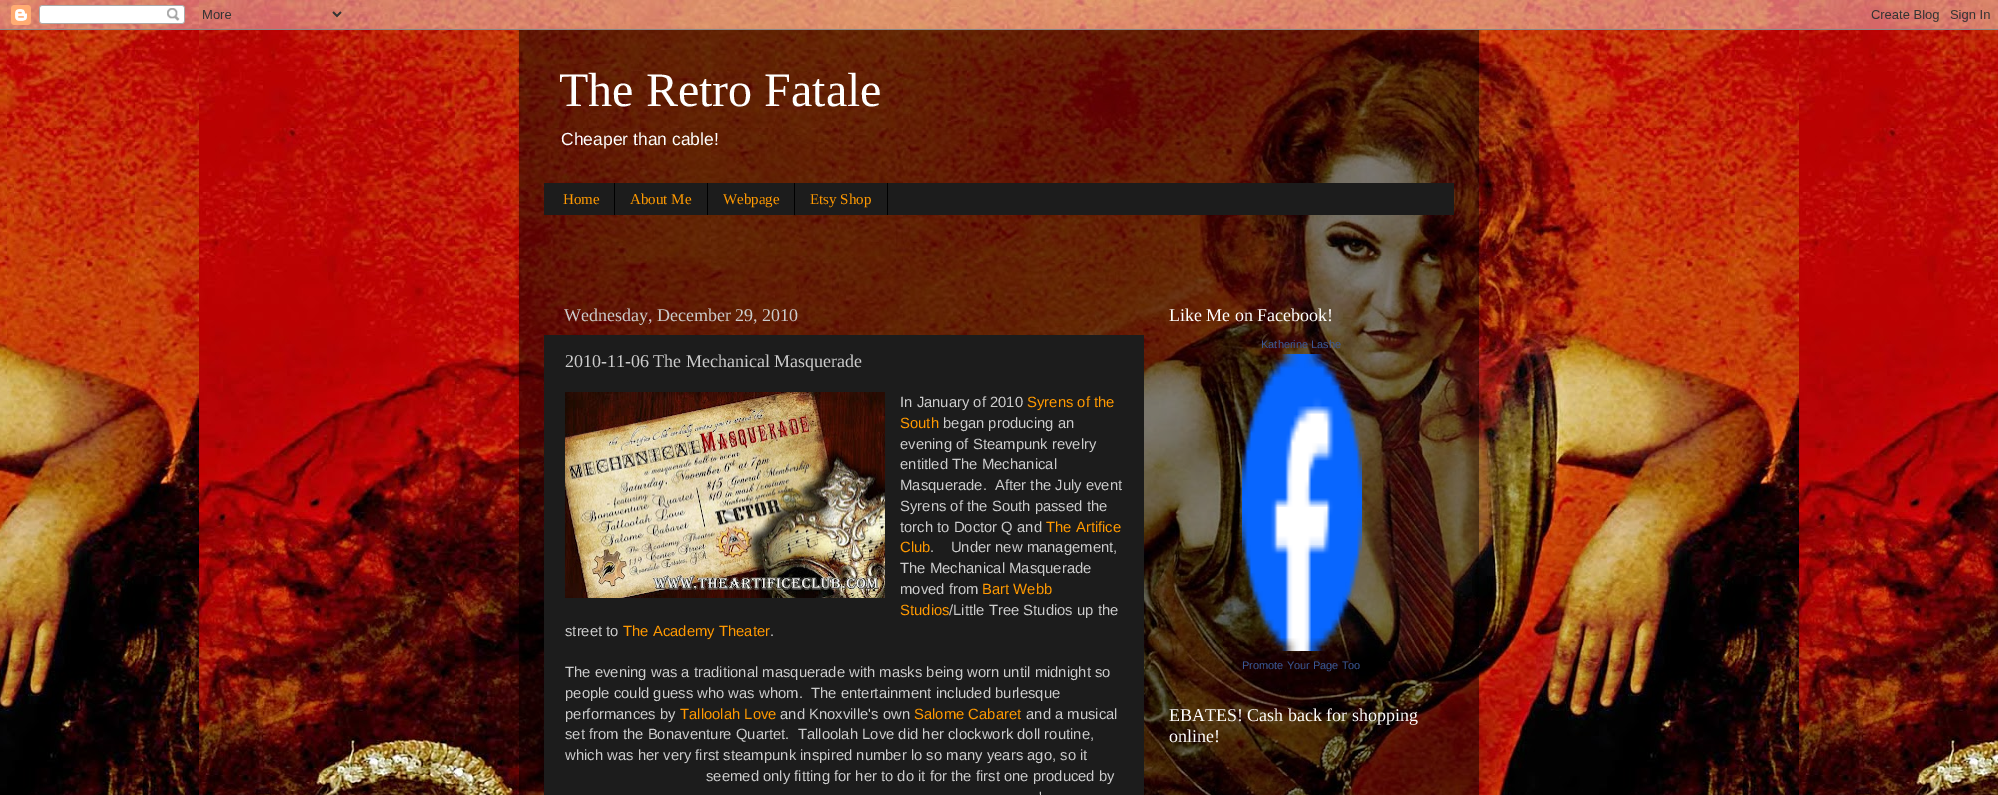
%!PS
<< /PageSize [1998 795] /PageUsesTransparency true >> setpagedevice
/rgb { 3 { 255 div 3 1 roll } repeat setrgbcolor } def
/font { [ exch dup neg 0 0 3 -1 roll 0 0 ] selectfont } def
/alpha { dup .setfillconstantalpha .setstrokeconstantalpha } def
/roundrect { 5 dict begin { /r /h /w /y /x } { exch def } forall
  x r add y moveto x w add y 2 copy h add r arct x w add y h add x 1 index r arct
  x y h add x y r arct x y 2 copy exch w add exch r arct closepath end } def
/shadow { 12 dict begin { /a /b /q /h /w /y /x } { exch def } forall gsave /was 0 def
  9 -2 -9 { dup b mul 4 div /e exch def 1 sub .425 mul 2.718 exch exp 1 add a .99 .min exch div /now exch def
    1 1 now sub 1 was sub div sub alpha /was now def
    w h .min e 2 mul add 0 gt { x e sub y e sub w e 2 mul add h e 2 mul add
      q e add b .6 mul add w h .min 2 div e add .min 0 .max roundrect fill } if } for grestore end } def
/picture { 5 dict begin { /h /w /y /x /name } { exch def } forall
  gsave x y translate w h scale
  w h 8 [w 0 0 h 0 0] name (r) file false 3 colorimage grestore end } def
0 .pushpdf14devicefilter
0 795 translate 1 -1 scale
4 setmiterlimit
255 255 255 rgb
0 0 1998 795 rectfill
(img/1.rgb) 0 0 1998 795 picture
gsave
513 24 moveto 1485 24 lineto 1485 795 lineto 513 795 lineto closepath 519 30 moveto 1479 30 lineto 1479 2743 lineto 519 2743 lineto closepath eoclip newpath
0 0 0 rgb
519 30 960 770 0 1.5 0.15 shadow
grestore
(img/2.rgb) 0 0 1998 30 picture
0.5 alpha
[
  [519 30 960 765 0 0 0]
] { aload pop rgb rectfill } forall
1 alpha
[
  [544 183 910 32 28 28 28]
  [614 183 1 32 0 0 0]
  [707 183 1 32 0 0 0]
  [794 183 1 32 0 0 0]
  [887 183 1 32 0 0 0]
  [544 335 600 460 28 28 28]
] { aload pop rgb rectfill } forall
(img/3.rgb) 565 392 320 206 picture
(img/4.rgb) 1242 354 120 297 picture
/LiberationSerif-Regular 48 font
255 255 255 rgb
559 106 moveto (The Retro Fatale) show
/LiberationSans-Regular 17.5 font
561 145 moveto (Cheaper than cable!) show
/LiberationSerif-Regular 15 font
255 153 0 rgb
[
  [(Home) 563 204]
  [(About Me) 630 204]
  [(Webpage) 723 204]
  [(Etsy Shop) 810 204]
] { aload pop moveto show } forall
/LiberationSerif-Regular 18 font
204 204 204 rgb
564 321 moveto (Wednesday, December 29, 2010) show
565 367 moveto (2010-11-06 The Mechanical Masquerade) show
/LiberationSans-Regular 14.85 font
900 407 moveto (In January of 2010) show
255 153 0 rgb
1027 407 moveto (Syrens of the) show
900 428 moveto (South) show
204 204 204 rgb
[
  [(began producing an) 943 428]
  [(evening of Steampunk revelry) 900 449]
  [(entitled The Mechanical) 900 469]
  [(Masquerade.  After the July event) 900 490]
  [(Syrens of the South passed the) 900 511]
  [(torch to Doctor Q and) 900 532]
] { aload pop moveto show } forall
255 153 0 rgb
1046 532 moveto (The Artifice) show
900 552 moveto (Club) show
204 204 204 rgb
[
  [(.    Under new management,) 930 552]
  [(The Mechanical Masquerade) 900 573]
  [(moved from) 900 594]
] { aload pop moveto show } forall
255 153 0 rgb
982 594 moveto (Bart Webb) show
900 615 moveto (Studios) show
204 204 204 rgb
949 615 moveto (/Little Tree Studios up the) show
565 636 moveto (street to) show
255 153 0 rgb
623 636 moveto (The Academy Theater) show
204 204 204 rgb
[
  [(.) 770 636]
  [(The evening was a traditional masquerade with masks being worn until midnight so) 565 677]
  [(people could guess who was whom.  The entertainment included burlesque) 565 698]
  [(performances by) 565 719]
] { aload pop moveto show } forall
255 153 0 rgb
680 719 moveto (Talloolah Love) show
204 204 204 rgb
780 719 moveto (and Knoxville's own) show
255 153 0 rgb
914 719 moveto (Salome Cabaret) show
204 204 204 rgb
[
  [(and a musical) 1026 719]
  [(set from the Bonaventure Quartet.  Talloolah Love did her clockwork doll routine,) 565 739]
  [(which was her very first steampunk inspired number lo so many years ago, so it) 565 760]
  [(seemed only fitting for her to do it for the first one produced by) 706 781]
  [(') 1039 802]
] { aload pop moveto show } forall
/LiberationSerif-Regular 18 font
255 255 255 rgb
1169 321 moveto (Like Me on Facebook!) show
/LiberationSans-Regular 11 font
59 89 152 rgb
1261 348 moveto (Katherine Lashe) show
1242 669 moveto (Promote Your Page Too) show
/LiberationSerif-Regular 18 font
255 255 255 rgb
1169 721 moveto (EBATES! Cash back for shopping) show
1169 742 moveto (online!) show
.poppdf14devicefilter showpage
